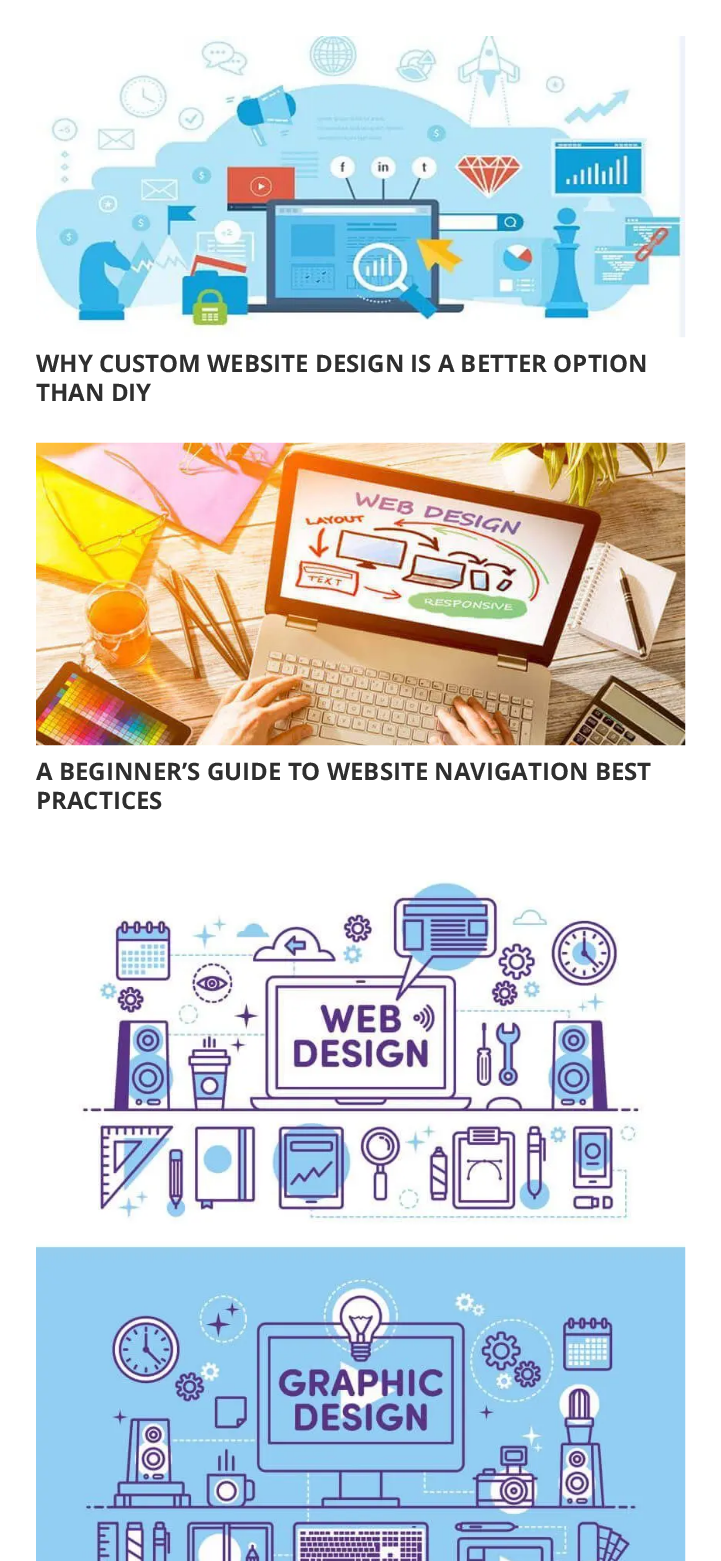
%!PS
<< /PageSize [721 1561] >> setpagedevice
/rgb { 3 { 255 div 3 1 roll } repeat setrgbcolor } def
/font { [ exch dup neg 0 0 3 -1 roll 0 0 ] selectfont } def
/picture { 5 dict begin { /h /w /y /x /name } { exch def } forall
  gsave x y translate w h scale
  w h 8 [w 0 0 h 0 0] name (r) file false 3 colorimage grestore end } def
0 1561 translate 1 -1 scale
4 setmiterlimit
255 255 255 rgb
0 0 721 1561 rectfill
(img/1.rgb) 36 36 650 302 picture
(img/2.rgb) 36 442 650 304 picture
(img/3.rgb) 36 879 650 682 picture
/OpenSans-Bold 24 font
46 46 46 rgb
[
  [(WHY CUSTOM WEBSITE DESIGN IS A BETTER OPTION) 36 372]
  [(THAN DIY) 36 401]
  [(A BEGINNER’S GUIDE TO WEBSITE NAVIGATION BEST) 36 780]
  [(PRACTICES) 36 809]
] { aload pop moveto show } forall
showpage
